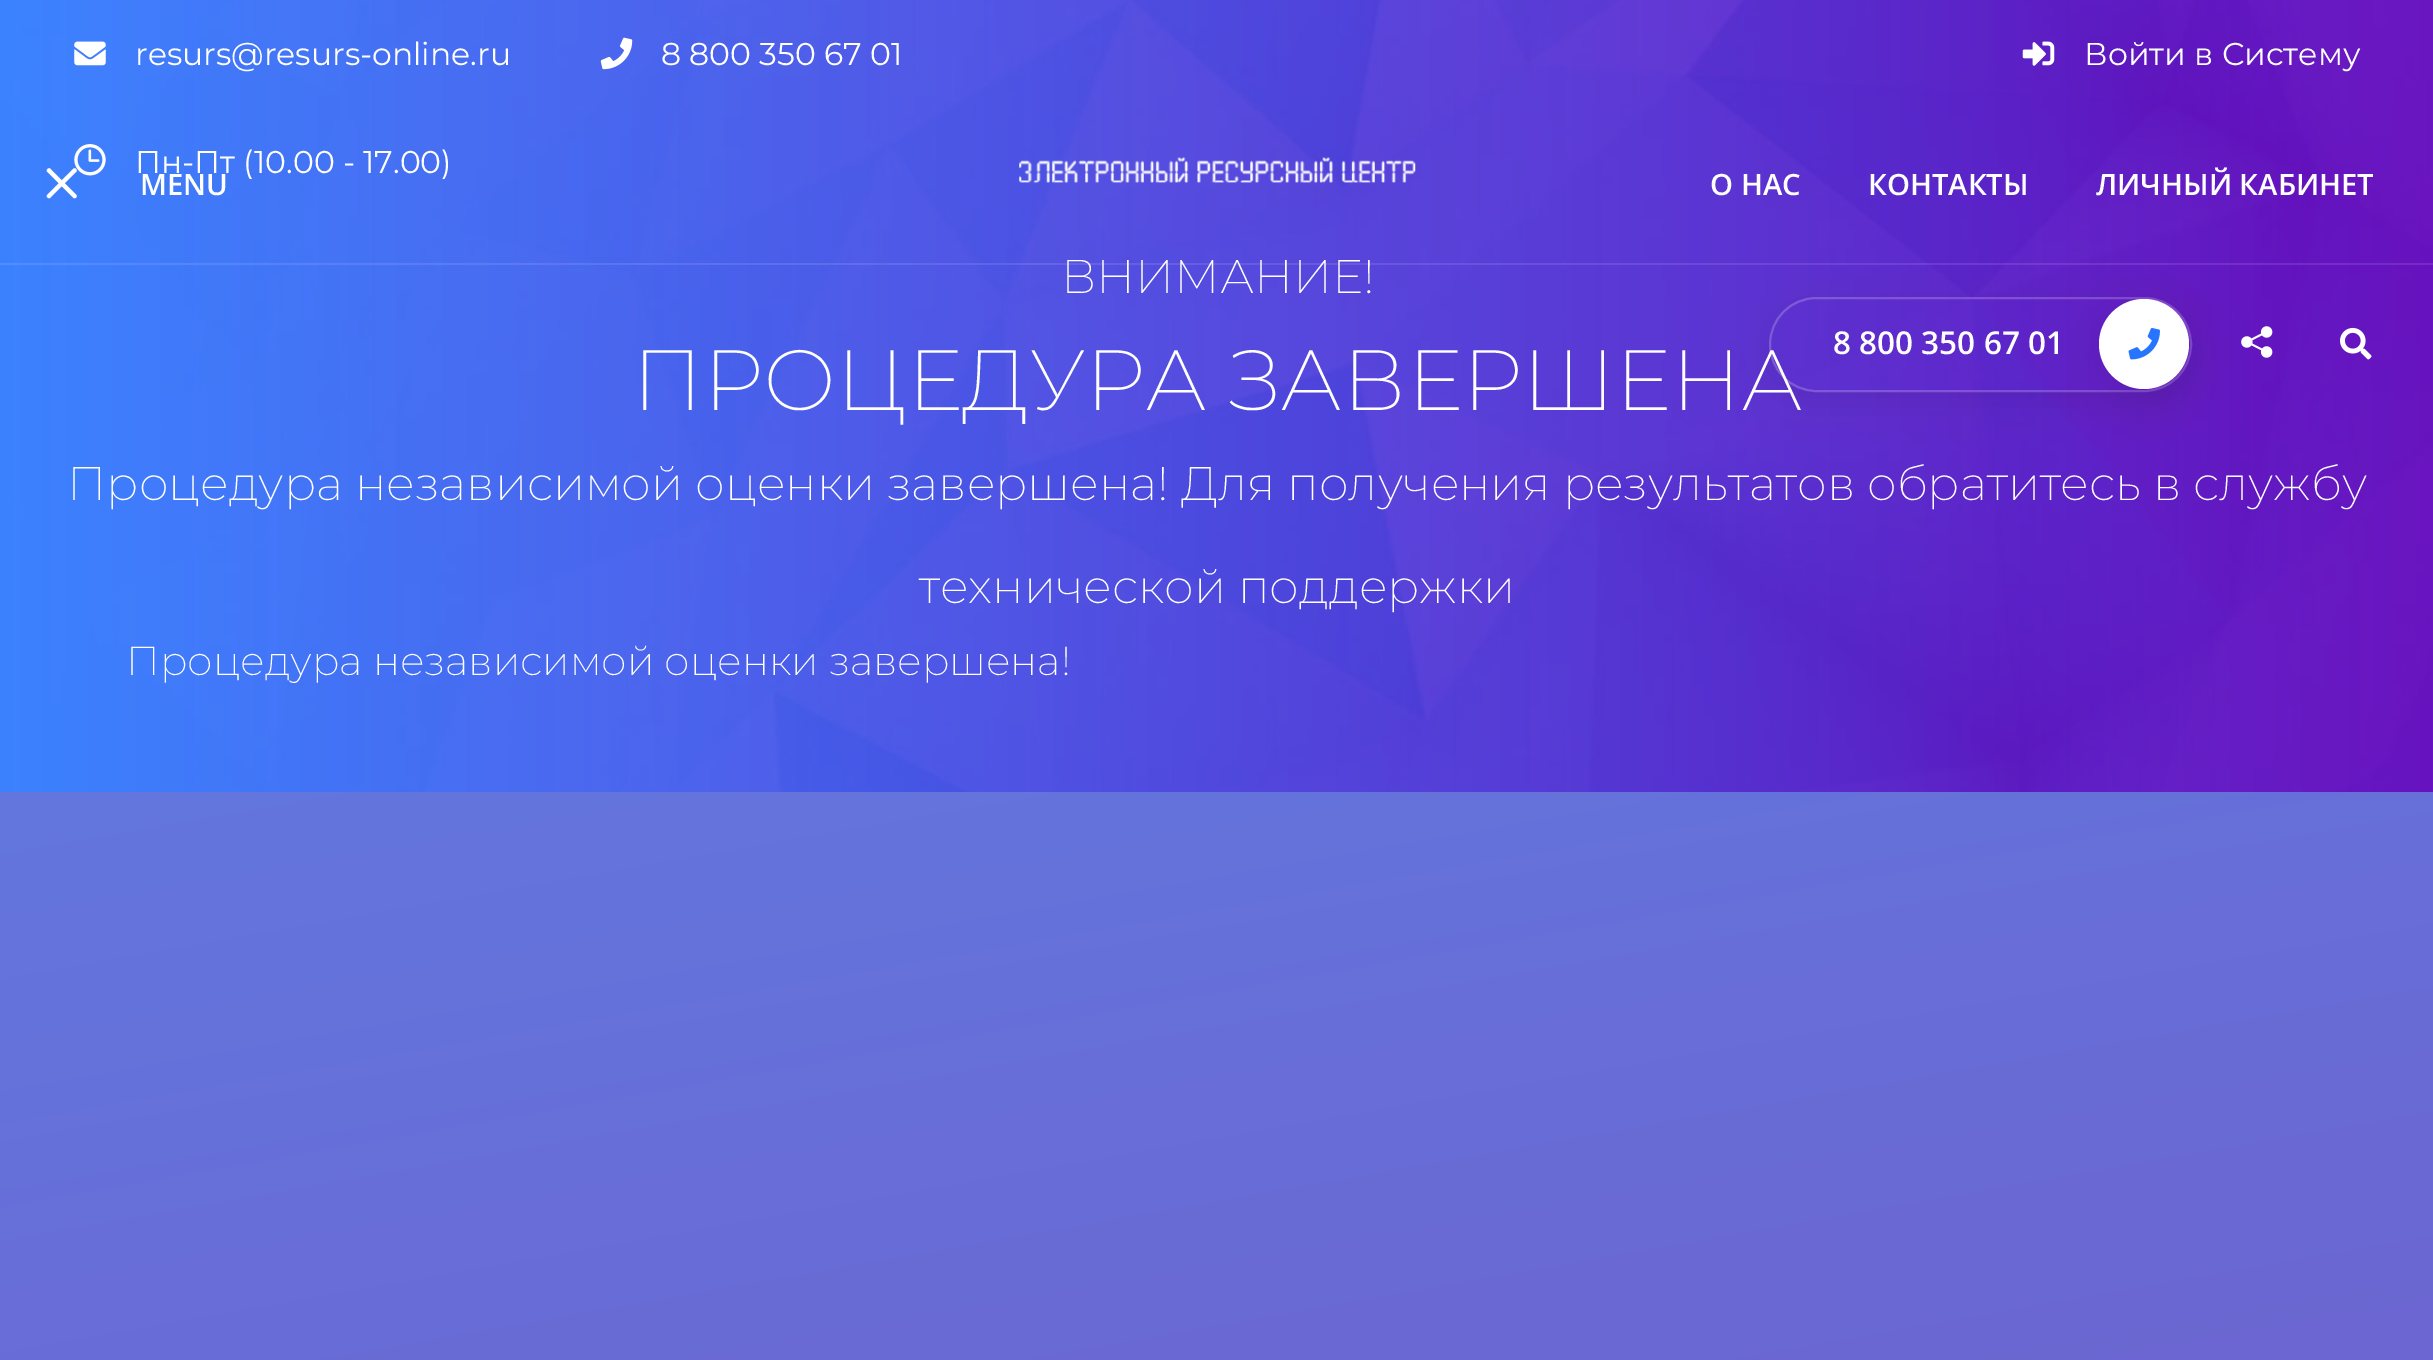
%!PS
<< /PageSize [2433 1360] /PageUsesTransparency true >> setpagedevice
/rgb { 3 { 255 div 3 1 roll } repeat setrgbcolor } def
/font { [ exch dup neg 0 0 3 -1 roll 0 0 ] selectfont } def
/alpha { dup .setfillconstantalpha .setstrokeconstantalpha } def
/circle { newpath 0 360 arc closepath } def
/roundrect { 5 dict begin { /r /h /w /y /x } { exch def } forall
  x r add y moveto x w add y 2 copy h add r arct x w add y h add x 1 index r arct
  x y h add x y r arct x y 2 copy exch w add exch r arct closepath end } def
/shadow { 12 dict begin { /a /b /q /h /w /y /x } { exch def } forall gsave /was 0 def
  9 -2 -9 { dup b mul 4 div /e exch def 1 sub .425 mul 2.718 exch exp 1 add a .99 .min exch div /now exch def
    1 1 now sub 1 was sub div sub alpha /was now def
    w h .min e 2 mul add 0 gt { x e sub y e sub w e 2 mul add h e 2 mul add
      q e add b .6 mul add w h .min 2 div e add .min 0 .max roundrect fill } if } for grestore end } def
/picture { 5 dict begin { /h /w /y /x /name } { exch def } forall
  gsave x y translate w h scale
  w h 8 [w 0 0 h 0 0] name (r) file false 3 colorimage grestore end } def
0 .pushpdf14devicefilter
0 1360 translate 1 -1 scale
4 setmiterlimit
255 255 255 rgb
0 0 2433 1360 rectfill
(img/9.rgb) 0 0 2433 792 picture
(img/1.rgb) 74 41 32 25 picture
(img/2.rgb) 600 37 33 33 picture
(img/3.rgb) 74 144 32 32 picture
(img/4.rgb) 2022 41 33 25 picture
0.1 alpha
0 263 2433 2 rectfill
1 alpha
76 169 moveto 77 170 77 171.5 76 172 curveto 50.5 197.5 lineto 50 198.5 48.5 198.5 47.5 197.5 curveto 46.5 197 46.5 195.5 47.5 194.5 curveto 73 169 lineto 74 168 75.5 168 76 169 curveto closepath fill
47.5 169 moveto 48.5 168 50 168 50.5 169 curveto 76 194.5 lineto 77 195.5 77 197 76 197.5 curveto 75.5 198.5 74 198.5 73 197.5 curveto 47.5 172 lineto 46.5 171.5 46.5 170 47.5 169 curveto closepath fill
(img/5.rgb) 1019 157 397 26 picture
gsave
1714 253 moveto 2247 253 lineto 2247 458 lineto 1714 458 lineto closepath 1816.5 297 moveto 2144.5 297 lineto 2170.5 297 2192 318.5 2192 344.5 curveto 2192 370.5 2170.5 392 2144.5 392 curveto 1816.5 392 lineto 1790.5 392 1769 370.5 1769 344.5 curveto 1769 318.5 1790.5 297 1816.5 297 curveto closepath eoclip newpath
0 0 0 rgb
1769 308 423 95 47.5 18 0.07 shadow
grestore
(img/8.rgb) 2340 327 32 33 picture
gsave 0 792 moveto 2433 792 lineto 2433 1360 lineto 0 1360 lineto closepath clip newpath
<< /ShadingType 2 /ColorSpace /DeviceRGB /Coords [1376 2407 1058 605] /Extend [true true] /Function << /FunctionType 2 /Domain [0 1] /C0 [0.455 0.341 0.769] /C1 [0.388 0.467 0.875] /N 1 >> >> shfill grestore
/Montserrat-Regular 31.5 font
[
  [(resurs@resurs-online.ru) 135 65]
  [(8 800 350 67 01) 661 65]
  [(Пн-Пт \(10.00 - 17.00\)) 135 173]
  [(Войти в Систему) 2084 65]
] { aload pop moveto show } forall
/OpenSans-SemiBold 29.25 font
[
  [(MENU) 140 195]
  [(О НАС) 1710 195]
  [(КОНТАКТЫ) 1868 195]
  [(ЛИЧНЫЙ КАБИНЕТ) 2096 195]
] { aload pop moveto show } forall
/Montserrat-ExtraLight 47.25 font
1061 293 moveto (ВНИМАНИЕ!) show
/Montserrat-ExtraLight 85.5 font
632 410 moveto (ПРОЦЕДУРА ЗАВЕРШЕНА) show
0.2 alpha
2 setlinewidth
1770 298 421 93 46.5 roundrect stroke
1 alpha
0 0 0 rgb
2099 311 90 90 45 18 0.07 shadow
(img/7.rgb) 2241 326 32 32 picture
255 255 255 rgb
2144 344 45 circle fill
(img/6.rgb) 2128 328 32 32 picture
/OpenSans-SemiBold 31.5 font
1833 354 moveto (8 800 350 67 01) show
/Montserrat-ExtraLight 47.25 font
67 500 moveto (Процедура независимой оценки завершена! Для получения результатов обратитесь в службу) show
919 603 moveto (технической поддержки) show
/Montserrat-ExtraLight 40.5 font
126 675 moveto (Процедура независимой оценки завершена!) show
.poppdf14devicefilter showpage
